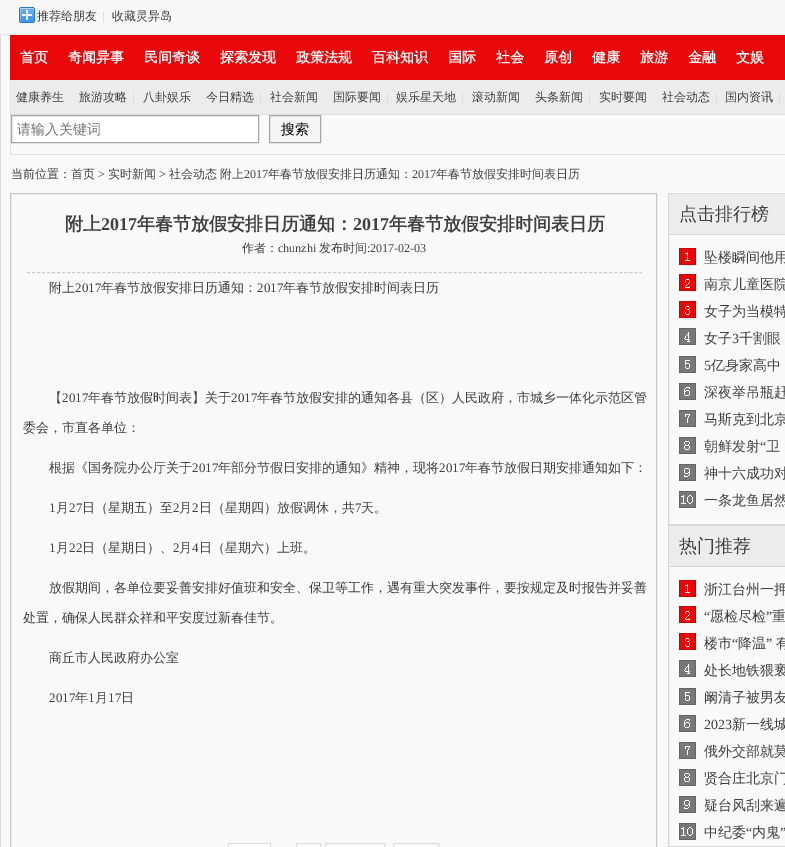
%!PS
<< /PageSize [785 847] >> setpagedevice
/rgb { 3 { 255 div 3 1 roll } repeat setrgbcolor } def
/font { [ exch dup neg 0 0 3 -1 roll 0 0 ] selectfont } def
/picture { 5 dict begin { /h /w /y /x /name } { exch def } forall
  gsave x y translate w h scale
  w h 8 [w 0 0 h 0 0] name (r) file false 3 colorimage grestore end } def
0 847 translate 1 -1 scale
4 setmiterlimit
247 247 247 rgb
0 0 785 847 rectfill
233 233 233 rgb
0 34 785 1 rectfill
(img/1.rgb) 19 7 16 16 picture
[
  [1 35 784 812 250 249 249]
  [0 35 1 812 220 220 220]
  [10 35 775 45 233 7 10]
  [11 80 774 34 236 236 236]
  [10 114 775 1 222 222 222]
  [10 80 1 35 222 222 222]
  [10 154 775 1 222 222 222]
  [10 115 1 40 222 222 222]
] { aload pop rgb rectfill } forall
255 255 255 rgb
11.5 115.5 moveto 258.5 115.5 lineto 258.5 142.5 lineto 11.5 142.5 lineto closepath gsave fill grestore
166 166 166 rgb
stroke
245 245 245 rgb
269.5 115.5 moveto 320.5 115.5 lineto 320.5 142.5 lineto 269.5 142.5 lineto closepath gsave fill grestore
166 166 166 rgb
stroke
199 199 199 rgb
10.5 193.5 646 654 rectstroke
204 204 204 rgb
[3 2.02] 0 setdash
27 272.5 moveto 642 272.5 lineto stroke
[
  [228 843 43 1 221 221 221]
  [228 844 43 3 255 255 255]
  [228 843 1 4 221 221 221]
  [270 843 1 4 221 221 221]
] { aload pop rgb rectfill } forall
255 255 255 rgb
296.5 843.5 moveto 320.5 843.5 lineto 320.5 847.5 lineto 296.5 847.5 lineto closepath gsave fill grestore
221 221 221 rgb
[] 0 setdash
stroke
255 255 255 rgb
325.5 843.5 moveto 384.5 843.5 lineto 384.5 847.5 lineto 325.5 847.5 lineto closepath gsave fill grestore
221 221 221 rgb
stroke
255 255 255 rgb
393.5 843.5 moveto 438.5 843.5 lineto 438.5 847.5 lineto 393.5 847.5 lineto closepath gsave fill grestore
221 221 221 rgb
stroke
216 215 215 rgb
668.5 193.5 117 331 rectstroke
236 236 236 rgb
669 194 116 40 rectfill
211 210 210 rgb
669 234 116 1 rectfill
(img/2.rgb) 679 248 17 260 picture
216 215 215 rgb
668.5 525.5 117 321 rectstroke
236 236 236 rgb
669 526 116 40 rectfill
211 210 210 rgb
669 566 116 1 rectfill
(img/2.rgb) 679 580 17 260 picture
/WenQuanYiZenHei-Medium 12 font
64 64 64 rgb
37 20 moveto (推荐给朋友) show
/LiberationSerif-Regular 12 font
201 201 201 rgb
102 20 moveto (|) show
/WenQuanYiZenHei-Medium 12 font
64 64 64 rgb
112 20 moveto (收藏灵异岛) show
/WenQuanYiZenHei-Bold 14 font
255 255 255 rgb
[
  [(首页) 20 62]
  [(奇闻异事) 68 62]
  [(民间奇谈) 144 62]
  [(探索发现) 220 62]
  [(政策法规) 296 62]
  [(百科知识) 372 62]
  [(国际) 448 62]
  [(社会) 496 62]
  [(原创) 544 62]
  [(健康) 592 62]
  [(旅游) 640 62]
  [(金融) 688 62]
  [(文娱) 736 62]
] { aload pop moveto show } forall
/WenQuanYiZenHei-Medium 12 font
64 64 64 rgb
16 101 moveto (健康养生) show
79 101 moveto (旅游攻略) show
/LiberationSerif-Regular 12 font
207 205 205 rgb
132 101 moveto (|) show
/WenQuanYiZenHei-Medium 12 font
64 64 64 rgb
143 101 moveto (八卦娱乐) show
206 101 moveto (今日精选) show
/LiberationSerif-Regular 12 font
207 205 205 rgb
259 101 moveto (|) show
/WenQuanYiZenHei-Medium 12 font
64 64 64 rgb
270 101 moveto (社会新闻) show
333 101 moveto (国际要闻) show
/LiberationSerif-Regular 12 font
207 205 205 rgb
386 101 moveto (|) show
/WenQuanYiZenHei-Medium 12 font
64 64 64 rgb
396 101 moveto (娱乐星天地) show
/LiberationSerif-Regular 12 font
207 205 205 rgb
461 101 moveto (|) show
/WenQuanYiZenHei-Medium 12 font
64 64 64 rgb
472 101 moveto (滚动新闻) show
535 101 moveto (头条新闻) show
/LiberationSerif-Regular 12 font
207 205 205 rgb
588 101 moveto (|) show
/WenQuanYiZenHei-Medium 12 font
64 64 64 rgb
599 101 moveto (实时要闻) show
662 101 moveto (社会动态) show
/LiberationSerif-Regular 12 font
207 205 205 rgb
715 101 moveto (|) show
/WenQuanYiZenHei-Medium 12 font
64 64 64 rgb
725 101 moveto (国内资讯) show
/LiberationSerif-Regular 12 font
207 205 205 rgb
778 101 moveto (|) show
/WenQuanYiZenHei-Medium 14 font
117 117 117 rgb
17 134 moveto (请输入关键词) show
0 0 0 rgb
281 134 moveto (搜索) show
/WenQuanYiZenHei-Medium 12 font
64 64 64 rgb
11 178 moveto (当前位置：首页) show
/LiberationSerif-Regular 12 font
98 178 moveto (>) show
/WenQuanYiZenHei-Medium 12 font
108 178 moveto (实时新闻) show
/LiberationSerif-Regular 12 font
159 178 moveto (>) show
/WenQuanYiZenHei-Medium 12 font
169 178 moveto (社会动态) show
220 178 moveto (附上) show
/LiberationSerif-Regular 12 font
244 178 moveto (2017) show
/WenQuanYiZenHei-Medium 12 font
268 178 moveto (年春节放假安排日历通知：) show
/LiberationSerif-Regular 12 font
412 178 moveto (2017) show
/WenQuanYiZenHei-Medium 12 font
436 178 moveto (年春节放假安排时间表日历) show
/WenQuanYiZenHei-Bold 18 font
65 230 moveto (附上) show
/LiberationSerif-Bold 18 font
101 230 moveto (2017) show
/WenQuanYiZenHei-Bold 18 font
137 230 moveto (年春节放假安排日历通知：) show
/LiberationSerif-Bold 18 font
353 230 moveto (2017) show
/WenQuanYiZenHei-Bold 18 font
389 230 moveto (年春节放假安排时间表日历) show
/WenQuanYiZenHei-Medium 12 font
242 252 moveto (作者：) show
/LiberationSerif-Regular 12 font
278 252 moveto (chunzhi) show
/WenQuanYiZenHei-Medium 12 font
319 252 moveto (发布时间) show
/LiberationSerif-Regular 12 font
367 252 moveto (:2017-02-03) show
/WenQuanYiZenHei-Medium 13 font
49 292 moveto (附上) show
/LiberationSerif-Regular 13 font
75 292 moveto (2017) show
/WenQuanYiZenHei-Medium 13 font
101 292 moveto (年春节放假安排日历通知：) show
/LiberationSerif-Regular 13 font
257 292 moveto (2017) show
/WenQuanYiZenHei-Medium 13 font
283 292 moveto (年春节放假安排时间表日历) show
49 402 moveto (【) show
/LiberationSerif-Regular 13 font
62 402 moveto (2017) show
/WenQuanYiZenHei-Medium 13 font
88 402 moveto (年春节放假时间表】关于) show
/LiberationSerif-Regular 13 font
231 402 moveto (2017) show
/WenQuanYiZenHei-Medium 13 font
[
  [(年春节放假安排的通知各县（区）人民政府，市城乡一体化示范区管) 257 402]
  [(委会，市直各单位：) 23 432]
  [(根据《国务院办公厅关于) 49 472]
] { aload pop moveto show } forall
/LiberationSerif-Regular 13 font
192 472 moveto (2017) show
/WenQuanYiZenHei-Medium 13 font
218 472 moveto (年部分节假日安排的通知》精神，现将) show
/LiberationSerif-Regular 13 font
439 472 moveto (2017) show
/WenQuanYiZenHei-Medium 13 font
465 472 moveto (年春节放假日期安排通知如下：) show
/LiberationSerif-Regular 13 font
49 512 moveto (1) show
/WenQuanYiZenHei-Medium 13 font
56 512 moveto (月) show
/LiberationSerif-Regular 13 font
69 512 moveto (27) show
/WenQuanYiZenHei-Medium 13 font
82 512 moveto (日（星期五）至) show
/LiberationSerif-Regular 13 font
173 512 moveto (2) show
/WenQuanYiZenHei-Medium 13 font
179 512 moveto (月) show
/LiberationSerif-Regular 13 font
192 512 moveto (2) show
/WenQuanYiZenHei-Medium 13 font
199 512 moveto (日（星期四）放假调休，共) show
/LiberationSerif-Regular 13 font
355 512 moveto (7) show
/WenQuanYiZenHei-Medium 13 font
361 512 moveto (天。) show
/LiberationSerif-Regular 13 font
49 552 moveto (1) show
/WenQuanYiZenHei-Medium 13 font
56 552 moveto (月) show
/LiberationSerif-Regular 13 font
69 552 moveto (22) show
/WenQuanYiZenHei-Medium 13 font
82 552 moveto (日（星期日）、) show
/LiberationSerif-Regular 13 font
173 552 moveto (2) show
/WenQuanYiZenHei-Medium 13 font
179 552 moveto (月) show
/LiberationSerif-Regular 13 font
192 552 moveto (4) show
/WenQuanYiZenHei-Medium 13 font
[
  [(日（星期六）上班。) 199 552]
  [(放假期间，各单位要妥善安排好值班和安全、保卫等工作，遇有重大突发事件，要按规定及时报告并妥善) 49 592]
  [(处置，确保人民群众祥和平安度过新春佳节。) 23 622]
  [(商丘市人民政府办公室) 49 662]
] { aload pop moveto show } forall
/LiberationSerif-Regular 13 font
49 702 moveto (2017) show
/WenQuanYiZenHei-Medium 13 font
75 702 moveto (年) show
/LiberationSerif-Regular 13 font
88 702 moveto (1) show
/WenQuanYiZenHei-Medium 13 font
95 702 moveto (月) show
/LiberationSerif-Regular 13 font
108 702 moveto (17) show
/WenQuanYiZenHei-Medium 13 font
121 702 moveto (日) show
/WenQuanYiZenHei-Medium 18 font
679 220 moveto (点击排行榜) show
/WenQuanYiZenHei-Medium 14 font
704 262 moveto (坠楼瞬间他用) show
704 289 moveto -1 0 32 (南京儿童医院) widthshow
704 316 moveto (女子为当模特) show
704 343 moveto (女子) show
/LiberationSerif-Regular 14 font
732 343 moveto (3) show
/WenQuanYiZenHei-Medium 14 font
739 343 moveto (千割眼) show
/LiberationSerif-Regular 14 font
704 370 moveto (5) show
/WenQuanYiZenHei-Medium 14 font
711 370 moveto (亿身家高中) show
704 397 moveto -1 0 32 (深夜举吊瓶赶) widthshow
704 424 moveto -1 0 32 (马斯克到北京) widthshow
704 451 moveto (朝鲜发射) show
/LiberationSerif-Regular 14 font
760 451 moveto (“) show
/WenQuanYiZenHei-Medium 14 font
766 451 moveto (卫) show
704 478 moveto -1 0 32 (神十六成功对) widthshow
704 505 moveto -1 0 32 (一条龙鱼居然) widthshow
/WenQuanYiZenHei-Medium 18 font
679 552 moveto (热门推荐) show
/WenQuanYiZenHei-Medium 14 font
704 594 moveto (浙江台州一押) show
/LiberationSerif-Regular 14 font
704 621 moveto (“) show
/WenQuanYiZenHei-Medium 14 font
710 621 moveto (愿检尽检) show
/LiberationSerif-Regular 14 font
766 621 moveto (”) show
/WenQuanYiZenHei-Medium 14 font
772 621 moveto -1 0 32 (重) widthshow
704 648 moveto (楼市) show
/LiberationSerif-Regular 14 font
732 648 moveto (“) show
/WenQuanYiZenHei-Medium 14 font
738 648 moveto (降温) show
/LiberationSerif-Regular 14 font
766 648 moveto (”) show
/WenQuanYiZenHei-Medium 14 font
776 648 moveto (有) show
704 675 moveto -1 0 32 (处长地铁猥亵) widthshow
704 702 moveto (阚清子被男友) show
/LiberationSerif-Regular 14 font
704 729 moveto (2023) show
/WenQuanYiZenHei-Medium 14 font
732 729 moveto (新一线城) show
704 756 moveto -1 0 32 (俄外交部就莫) widthshow
704 783 moveto -1 0 32 (贤合庄北京门) widthshow
704 810 moveto -1 0 32 (疑台风刮来遍) widthshow
704 837 moveto (中纪委) show
/LiberationSerif-Regular 14 font
746 837 moveto (“) show
/WenQuanYiZenHei-Medium 14 font
752 837 moveto (内鬼) show
/LiberationSerif-Regular 14 font
780 837 moveto (”) show
showpage
